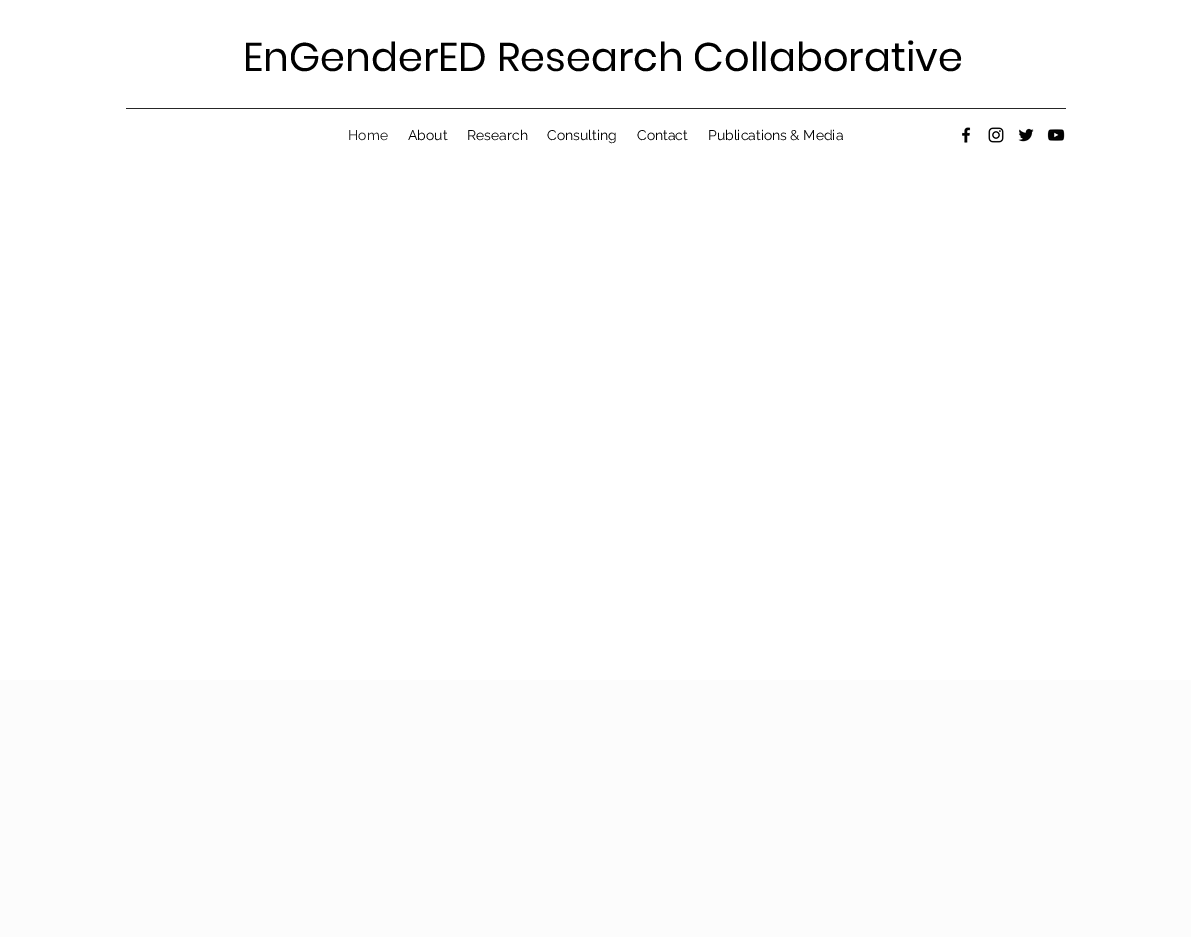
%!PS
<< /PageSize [1191 937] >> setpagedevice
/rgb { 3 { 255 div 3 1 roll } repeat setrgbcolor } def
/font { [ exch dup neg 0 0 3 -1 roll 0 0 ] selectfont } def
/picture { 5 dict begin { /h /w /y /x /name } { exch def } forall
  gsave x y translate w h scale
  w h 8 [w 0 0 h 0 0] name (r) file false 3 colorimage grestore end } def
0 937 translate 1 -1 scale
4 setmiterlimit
255 255 255 rgb
0 0 1191 937 rectfill
38 38 38 rgb
126 108 940 1 rectfill
(img/1.rgb) 962 127 9 16 picture
(img/2.rgb) 988 127 16 16 picture
(img/3.rgb) 1018 128 16 14 picture
(img/4.rgb) 1047 129 18 12 picture
252 252 252 rgb
0 680 1191 257 rectfill
/Poppins-Regular 40 font
0 0 0 rgb
243 71 moveto (EnGenderED Research Collaborative) show
/Raleway-Regular 14 font
25 25 25 rgb
348 140 moveto (Home) show
0 0 0 rgb
[
  [(About) 408 140]
  [(Research) 467 140]
  [(Consulting) 547 140]
  [(Contact) 637 140]
  [(Publications & Media) 708 140]
] { aload pop moveto show } forall
showpage
